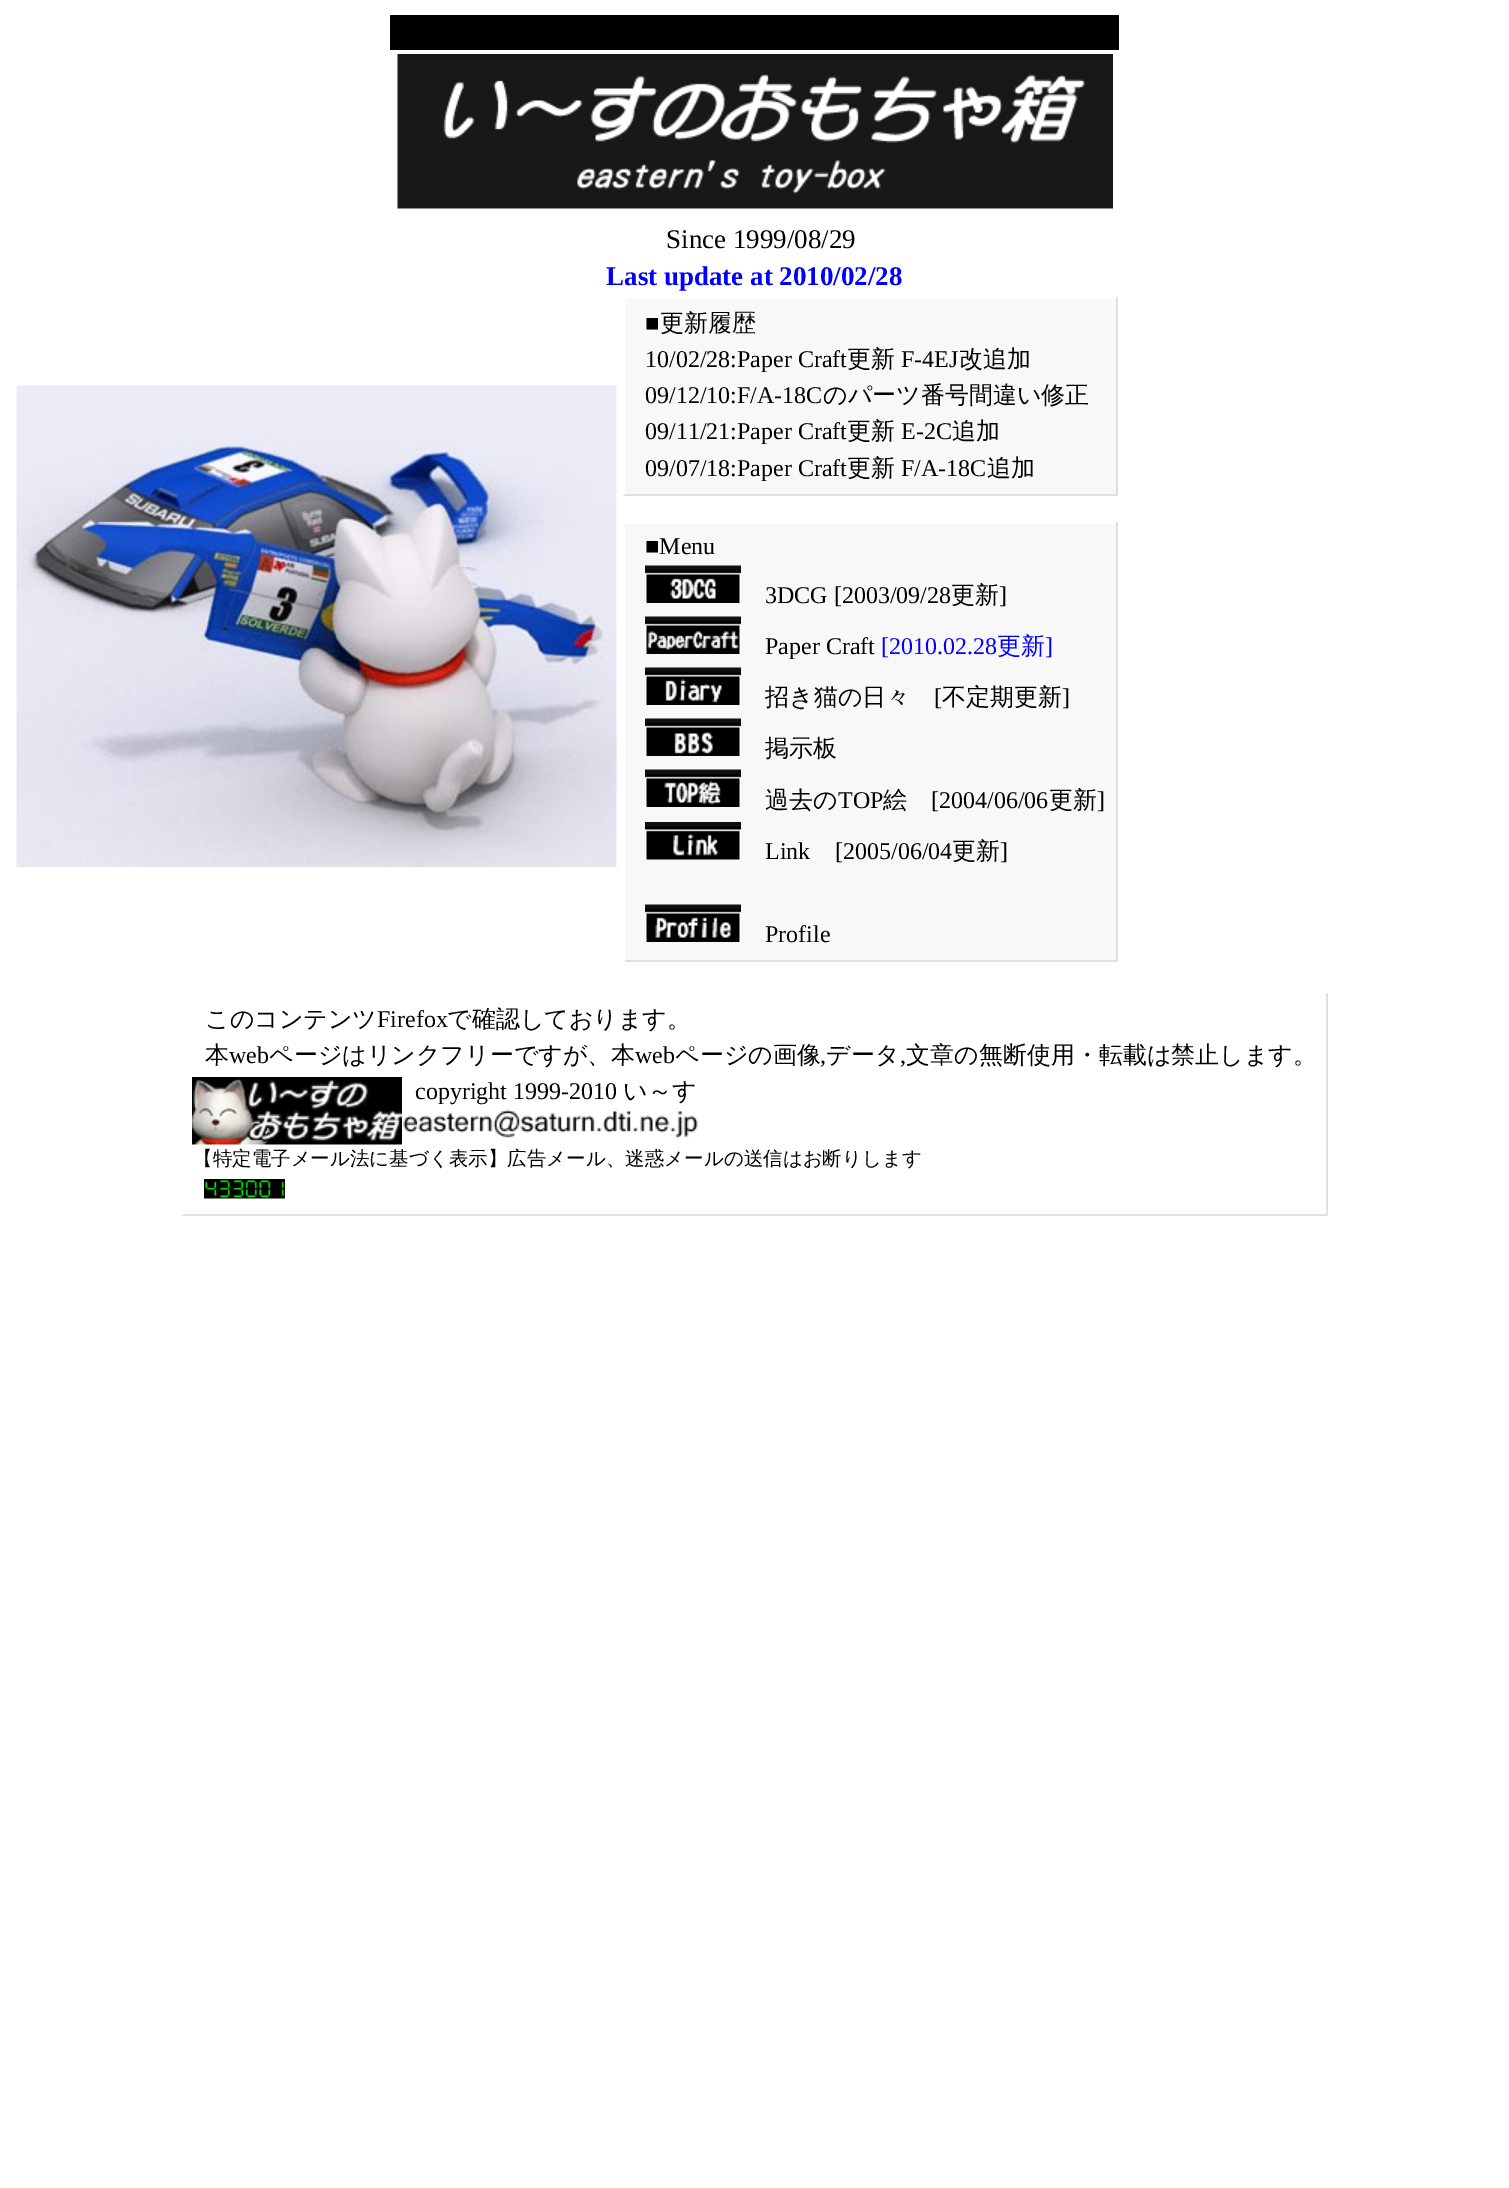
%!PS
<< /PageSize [1509 2188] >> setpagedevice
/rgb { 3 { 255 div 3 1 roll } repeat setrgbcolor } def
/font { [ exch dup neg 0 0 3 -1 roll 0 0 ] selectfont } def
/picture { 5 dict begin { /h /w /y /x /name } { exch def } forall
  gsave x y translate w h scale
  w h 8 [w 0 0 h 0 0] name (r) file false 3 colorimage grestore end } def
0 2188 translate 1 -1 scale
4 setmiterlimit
255 255 255 rgb
0 0 1509 2188 rectfill
0 0 0 rgb
390 15 729 35 rectfill
(img/1.rgb) 397 54 716 155 picture
(img/2.rgb) 16 385 601 482 picture
[
  [625 299 491 195 248 248 248]
  [1116 297 2 198 224 224 224]
  [623 494 495 2 224 224 224]
  [623 494 2 1 255 255 255]
  [625 524 491 436 248 248 248]
  [1116 522 2 440 224 224 224]
  [623 960 495 2 224 224 224]
  [623 960 2 2 255 255 255]
] { aload pop rgb rectfill } forall
(img/3.rgb) 645 565 96 38 picture
(img/4.rgb) 645 616 96 38 picture
(img/5.rgb) 645 667 96 38 picture
(img/6.rgb) 645 718 96 38 picture
(img/7.rgb) 645 769 96 38 picture
(img/8.rgb) 645 822 96 38 picture
(img/9.rgb) 645 904 96 38 picture
[
  [1326 993 2 222 224 224 224]
  [182 1214 1146 2 224 224 224]
  [182 1214 2 1 255 255 255]
] { aload pop rgb rectfill } forall
(img/10.rgb) 192 1077 210 68 picture
(img/11.rgb) 403 1109 295 29 picture
(img/12.rgb) 204 1179 81 20 picture
/LiberationSerif-Regular 27 font
0 0 0 rgb
666 248 moveto (Since 1999/08/29) show
/LiberationSerif-Bold 27 font
0 0 255 rgb
606 285 moveto (Last update at 2010/02/28) show
/LiberationSerif-Regular 24 font
0 0 0 rgb
645 331 moveto (■) show
/WenQuanYiZenHei-Medium 24 font
660 331 moveto (更新履歴) show
/LiberationSerif-Regular 24 font
645 367 moveto (10/02/28:Paper Craft) show
/WenQuanYiZenHei-Medium 24 font
847 367 moveto (更新) show
/LiberationSerif-Regular 24 font
901 367 moveto (F-4EJ) show
/WenQuanYiZenHei-Medium 24 font
959 367 moveto (改追加) show
/LiberationSerif-Regular 24 font
645 403 moveto (09/12/10:F/A-18C) show
/WenQuanYiZenHei-Medium 24 font
823 403 moveto (のパーツ番号間違い修正) show
/LiberationSerif-Regular 24 font
645 439 moveto (09/11/21:Paper Craft) show
/WenQuanYiZenHei-Medium 24 font
847 439 moveto (更新) show
/LiberationSerif-Regular 24 font
901 439 moveto (E-2C) show
/WenQuanYiZenHei-Medium 24 font
952 439 moveto (追加) show
/LiberationSerif-Regular 24 font
645 476 moveto (09/07/18:Paper Craft) show
/WenQuanYiZenHei-Medium 24 font
847 476 moveto (更新) show
/LiberationSerif-Regular 24 font
901 476 moveto (F/A-18C) show
/WenQuanYiZenHei-Medium 24 font
987 476 moveto (追加) show
/LiberationSerif-Regular 24 font
645 554 moveto (■Menu) show
765 603 moveto (3DCG [2003/09/28) show
/WenQuanYiZenHei-Medium 24 font
951 603 moveto (更新) show
/LiberationSerif-Regular 24 font
999 603 moveto (]) show
765 654 moveto (Paper Craft) show
0 0 255 rgb
881 654 moveto ([2010.02.28) show
/WenQuanYiZenHei-Medium 24 font
997 654 moveto (更新) show
/LiberationSerif-Regular 24 font
1045 654 moveto (]) show
/WenQuanYiZenHei-Medium 24 font
0 0 0 rgb
765 705 moveto (招き猫の日々) show
/LiberationSerif-Regular 24 font
934 705 moveto ([) show
/WenQuanYiZenHei-Medium 24 font
942 705 moveto (不定期更新) show
/LiberationSerif-Regular 24 font
1062 705 moveto (]) show
/WenQuanYiZenHei-Medium 24 font
765 756 moveto (掲示板) show
765 808 moveto (過去の) show
/LiberationSerif-Regular 24 font
838 808 moveto (TOP) show
/WenQuanYiZenHei-Medium 24 font
883 808 moveto (絵) show
/LiberationSerif-Regular 24 font
931 808 moveto ([2004/06/06) show
/WenQuanYiZenHei-Medium 24 font
1049 808 moveto (更新) show
/LiberationSerif-Regular 24 font
[
  [(]) 1097 808]
  [(Link) 765 859]
  [([2005/06/04) 835 859]
] { aload pop moveto show } forall
/WenQuanYiZenHei-Medium 24 font
952 859 moveto (更新) show
/LiberationSerif-Regular 24 font
1000 859 moveto (]) show
765 942 moveto (Profile) show
/WenQuanYiZenHei-Medium 24 font
205 1027 moveto (このコンテンツ) show
/LiberationSerif-Regular 24 font
377 1027 moveto (Firefox) show
/WenQuanYiZenHei-Medium 24 font
447 1027 moveto (で確認しております。) show
205 1063 moveto (本) show
/LiberationSerif-Regular 24 font
229 1063 moveto (web) show
/WenQuanYiZenHei-Medium 24 font
269 1063 moveto (ページはリンクフリーですが、本) show
/LiberationSerif-Regular 24 font
635 1063 moveto (web) show
/WenQuanYiZenHei-Medium 24 font
675 1063 moveto (ページの画像) show
/LiberationSerif-Regular 24 font
820 1063 moveto (,) show
/WenQuanYiZenHei-Medium 24 font
826 1063 moveto (データ) show
/LiberationSerif-Regular 24 font
900 1063 moveto (,) show
/WenQuanYiZenHei-Medium 24 font
906 1063 moveto (文章の無断使用・転載は禁止します。) show
/LiberationSerif-Regular 24 font
415 1099 moveto (copyright 1999-2010) show
/WenQuanYiZenHei-Medium 24 font
623 1099 moveto (い～す) show
/WenQuanYiZenHei-Medium 19.5 font
193 1165 moveto (【特定電子メール法に基づく表示】広告メール、迷惑メールの送信はお断りします) show
showpage
